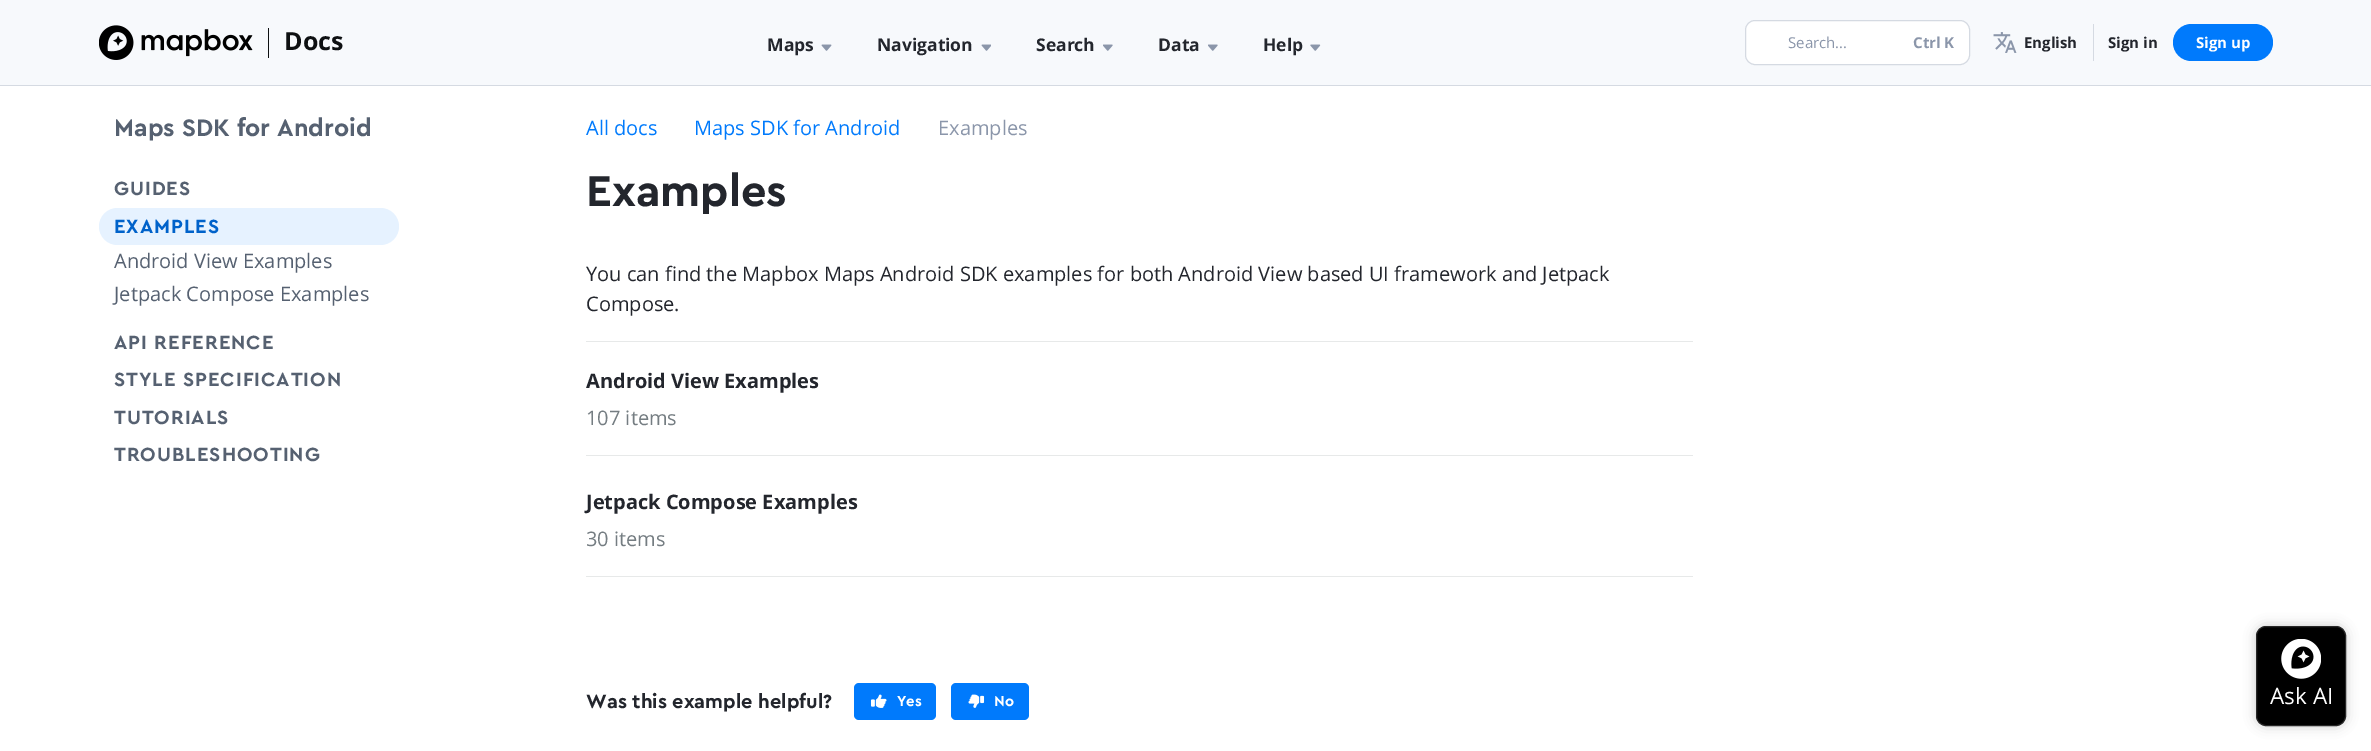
%!PS
<< /PageSize [2371 751] /PageUsesTransparency true >> setpagedevice
/rgb { 3 { 255 div 3 1 roll } repeat setrgbcolor } def
/font { [ exch dup neg 0 0 3 -1 roll 0 0 ] selectfont } def
/alpha { dup .setfillconstantalpha .setstrokeconstantalpha } def
/roundrect { 5 dict begin { /r /h /w /y /x } { exch def } forall
  x r add y moveto x w add y 2 copy h add r arct x w add y h add x 1 index r arct
  x y h add x y r arct x y 2 copy exch w add exch r arct closepath end } def
/shadow { 12 dict begin { /a /b /q /h /w /y /x } { exch def } forall gsave /was 0 def
  9 -2 -9 { dup b mul 4 div /e exch def 1 sub .425 mul 2.718 exch exp 1 add a .99 .min exch div /now exch def
    1 1 now sub 1 was sub div sub alpha /was now def
    w h .min e 2 mul add 0 gt { x e sub y e sub w e 2 mul add h e 2 mul add
      q e add b .6 mul add w h .min 2 div e add .min 0 .max roundrect fill } if } for grestore end } def
/picture { 5 dict begin { /h /w /y /x /name } { exch def } forall
  gsave x y translate w h scale
  w h 8 [w 0 0 h 0 0] name (r) file false 3 colorimage grestore end } def
0 .pushpdf14devicefilter
0 751 translate 1 -1 scale
4 setmiterlimit
255 255 255 rgb
0 0 2371 751 rectfill
247 249 252 rgb
0 0 2371 85 rectfill
213 218 226 rgb
0 85 2371 1 rectfill
(img/1.rgb) 99 25 154 35 picture
14 16 18 rgb
268 28 1 30 rectfill
(img/2.rgb) 821 44 11 7 picture
(img/3.rgb) 981 44 10 7 picture
(img/4.rgb) 1103 44 10 7 picture
(img/4.rgb) 1208 44 10 7 picture
(img/5.rgb) 1310 44 11 7 picture
255 255 255 rgb
1745.5 20.5 224 44 9.5 roundrect gsave fill grestore
213 218 226 rgb
stroke
(img/6.rgb) 1993 32 24 21 picture
2093 24 1 37 rectfill
0 122 252 rgb
2173 24 100 37 18.5 roundrect fill
230 242 255 rgb
99 208 300 37 18.5 roundrect fill
[
  [586 341 1107 1 231 233 233]
  [586 455 1107 1 231 233 233]
  [586 576 1107 1 231 233 233]
] { aload pop rgb rectfill } forall
0 122 252 rgb
854 683 82 37 5 roundrect fill
(img/7.rgb) 870 694 17 14 picture
951 683 78 37 5 roundrect fill
(img/8.rgb) 968 694 17 14 picture
0 0 0 rgb
2256 626 90 100 10 6 0.2 shadow
2256.5 626.5 89 99 9.5 roundrect gsave fill grestore
40 40 40 rgb
stroke
(img/9.rgb) 2281 639 40 40 picture
/OpenSans-Bold 25 font
14 16 18 rgb
284 50 moveto (Docs) show
/OpenSans-Bold 17.5 font
35 38 45 rgb
[
  [(Maps) 767 51]
  [(Navigation) 877 51]
  [(Search) 1036 51]
  [(Data) 1158 51]
  [(Help) 1263 51]
] { aload pop moveto show } forall
/OpenSans-Regular 15 font
139 150 170 rgb
1788 48 moveto (Search...) show
/OpenSans-Bold 15 font
1913 48 moveto (Ctrl K) show
35 38 45 rgb
2024 48 moveto (English) show
2108 48 moveto (Sign in) show
255 255 255 rgb
2196 48 moveto (Sign up) show
/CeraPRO-Bold 25 font
86 97 113 rgb
114 136 moveto (Maps SDK for Android) show
/CeraPRO-Bold 20 font
114 195 moveto 1 0 (GUIDES) ashow
0 98 202 rgb
114 233 moveto 1 0 (EXAMPLES) ashow
/OpenSans-Regular 20 font
86 97 113 rgb
114 268 moveto (Android View Examples) show
114 301 moveto (Jetpack Compose Examples) show
/CeraPRO-Bold 20 font
114 349 moveto 1 0 (API REFERENCE) ashow
114 386 moveto 1 0 (STYLE SPECIFICATION) ashow
114 424 moveto 1 0 (TUTORIALS) ashow
114 461 moveto 1 0 (TROUBLESHOOTING) ashow
/OpenSans-Regular 20 font
0 122 252 rgb
586 135 moveto (All docs) show
694 135 moveto (Maps SDK for Android) show
139 150 170 rgb
938 135 moveto (Examples) show
/CeraPRO-Bold 45 font
35 38 45 rgb
586 206 moveto (Examples) show
/OpenSans-Regular 20 font
586 281 moveto (You can find the Mapbox Maps Android SDK examples for both Android View based UI framework and Jetpack) show
586 311 moveto (Compose.) show
/OpenSans-Bold 20 font
586 388 moveto (Android View Examples) show
/OpenSans-Regular 20 font
117 125 130 rgb
586 425 moveto (107 items) show
/OpenSans-Bold 20 font
35 38 45 rgb
586 509 moveto (Jetpack Compose Examples) show
/OpenSans-Regular 20 font
117 125 130 rgb
586 546 moveto (30 items) show
/CeraPRO-Bold 20 font
35 38 45 rgb
586 708 moveto (Was this example helpful?) show
/CeraPRO-Bold 15 font
255 255 255 rgb
897 706 moveto (Yes) show
994 706 moveto (No) show
/OpenSans-Regular 22.5 font
2270 704 moveto (Ask AI) show
.poppdf14devicefilter showpage
